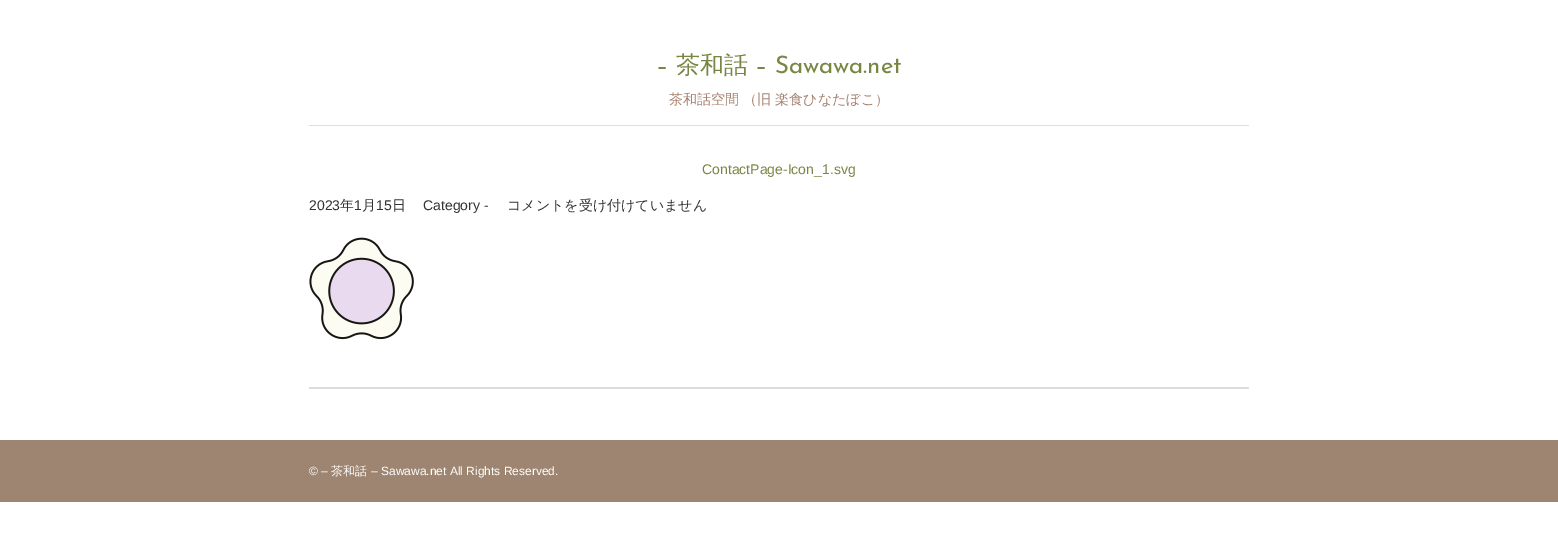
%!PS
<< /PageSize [1558 551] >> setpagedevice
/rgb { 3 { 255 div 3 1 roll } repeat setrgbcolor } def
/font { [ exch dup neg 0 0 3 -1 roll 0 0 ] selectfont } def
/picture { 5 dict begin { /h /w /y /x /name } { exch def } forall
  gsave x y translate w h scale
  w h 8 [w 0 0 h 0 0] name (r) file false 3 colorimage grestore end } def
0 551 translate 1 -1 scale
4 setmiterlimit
255 255 255 rgb
0 0 1558 551 rectfill
221 221 221 rgb
309 125 940 1 rectfill
(img/1.rgb) 309 237 105 103 picture
309 387 940 2 rectfill
158 133 113 rgb
0 440 1558 62 rectfill
/JosefinSans-Regular 24 font
119 134 67 rgb
656 73 moveto (–) show
/WenQuanYiZenHei-Medium 24 font
676 73 moveto (茶和話) show
/JosefinSans-Regular 24 font
755 73 moveto (– Sawawa.net) show
/WenQuanYiZenHei-Medium 14 font
166 129 110 rgb
669 104 moveto (茶和話空間 （旧 楽食ひなたぼこ）) show
/LiberationSans-Regular 14 font
119 134 67 rgb
702 174 moveto (ContactPage-Icon_1.svg) show
51 51 51 rgb
309 210 moveto (2023) show
/WenQuanYiZenHei-Medium 14 font
340 210 moveto (年) show
/LiberationSans-Regular 14 font
354 210 moveto (1) show
/WenQuanYiZenHei-Medium 14 font
362 210 moveto (月) show
/LiberationSans-Regular 14 font
376 210 moveto (15) show
/WenQuanYiZenHei-Medium 14 font
392 210 moveto (日) show
/LiberationSans-Regular 14 font
423 210 moveto (Category -) show
/WenQuanYiZenHei-Medium 14 font
507 210 moveto (コメントを受け付けていません) show
/LiberationSans-Regular 12 font
255 255 255 rgb
309 475 moveto (© –) show
/WenQuanYiZenHei-Medium 12 font
331 475 moveto (茶和話) show
/LiberationSans-Regular 12 font
371 475 moveto (– Sawawa.net All Rights Reserved.) show
showpage
